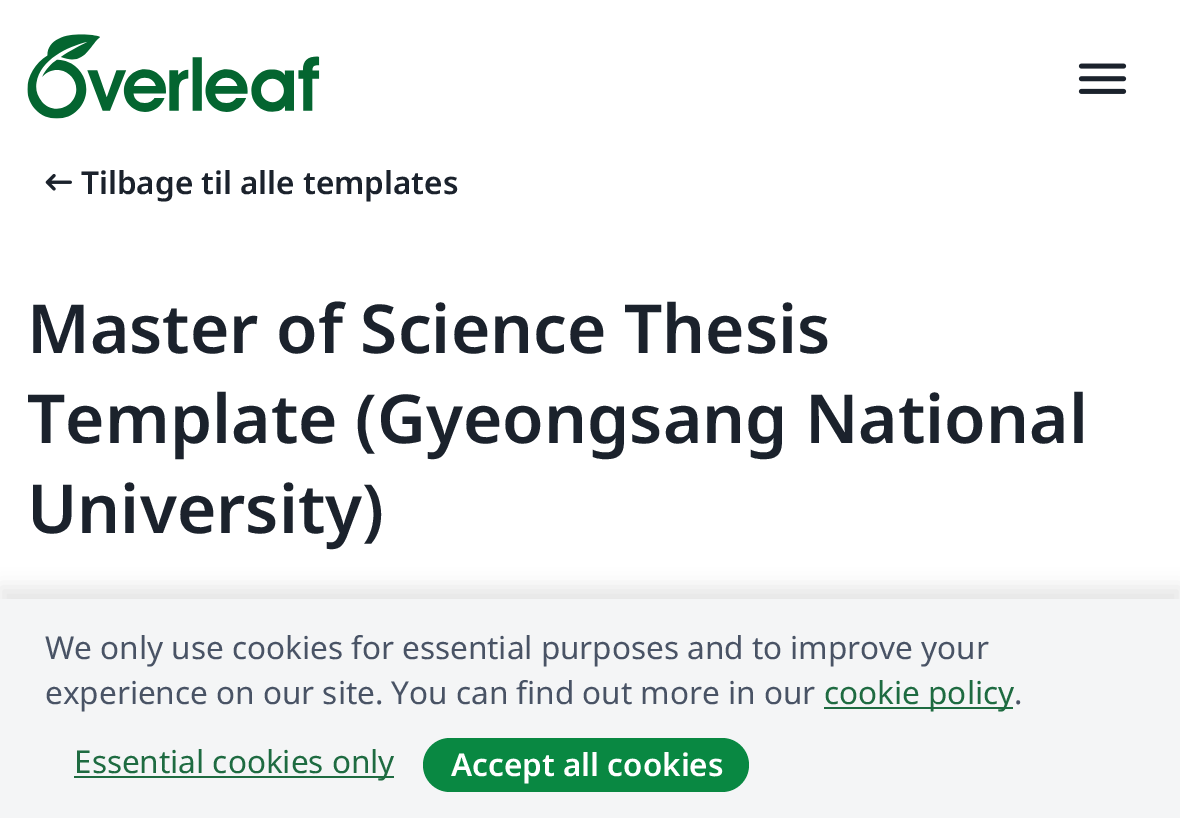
%!PS
<< /PageSize [1180 818] /PageUsesTransparency true >> setpagedevice
/rgb { 3 { 255 div 3 1 roll } repeat setrgbcolor } def
/font { [ exch dup neg 0 0 3 -1 roll 0 0 ] selectfont } def
/alpha { dup .setfillconstantalpha .setstrokeconstantalpha } def
/roundrect { 5 dict begin { /r /h /w /y /x } { exch def } forall
  x r add y moveto x w add y 2 copy h add r arct x w add y h add x 1 index r arct
  x y h add x y r arct x y 2 copy exch w add exch r arct closepath end } def
/shadow { 12 dict begin { /a /b /q /h /w /y /x } { exch def } forall gsave /was 0 def
  9 -2 -9 { dup b mul 4 div /e exch def 1 sub .425 mul 2.718 exch exp 1 add a .99 .min exch div /now exch def
    1 1 now sub 1 was sub div sub alpha /was now def
    w h .min e 2 mul add 0 gt { x e sub y e sub w e 2 mul add h e 2 mul add
      q e add b .6 mul add w h .min 2 div e add .min 0 .max roundrect fill } if } for grestore end } def
/picture { 5 dict begin { /h /w /y /x /name } { exch def } forall
  gsave x y translate w h scale
  w h 8 [w 0 0 h 0 0] name (r) file false 3 colorimage grestore end } def
0 .pushpdf14devicefilter
0 818 translate 1 -1 scale
4 setmiterlimit
255 255 255 rgb
0 0 1180 818 rectfill
(img/1.rgb) 27 34 293 85 picture
(img/2.rgb) 1078 63 49 31 picture
(img/3.rgb) 45 174 27 17 picture
0 0 0 rgb
0 587 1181 221 0 9 0.1 shadow
[
  [0 599 1180 219 244 245 246]
  [824 707 189 2 30 107 65]
  [74 776 320 2 30 107 65]
] { aload pop rgb rectfill } forall
9 136 66 rgb
423 738 326 54 27 roundrect fill
/NotoSans-SemiBold 31.5 font
27 34 44 rgb
81 194 moveto (Tilbage til alle templates) show
/NotoSans-SemiBold 67.5 font
[
  [(Master of Science Thesis) 27 353]
  [(Template \(Gyeongsang National) 27 443]
  [(University\)) 27 533]
] { aload pop moveto show } forall
/NotoSans-Regular 31.5 font
73 83 101 rgb
45 659 moveto (We only use cookies for essential purposes and to improve your) show
45 704 moveto (experience on our site. You can find out more in our) show
30 107 65 rgb
824 704 moveto (cookie policy) show
73 83 101 rgb
1014 704 moveto (.) show
30 107 65 rgb
74 773 moveto (Essential cookies only) show
/NotoSans-SemiBold 31.5 font
255 255 255 rgb
451 776 moveto (Accept all cookies) show
.poppdf14devicefilter showpage
